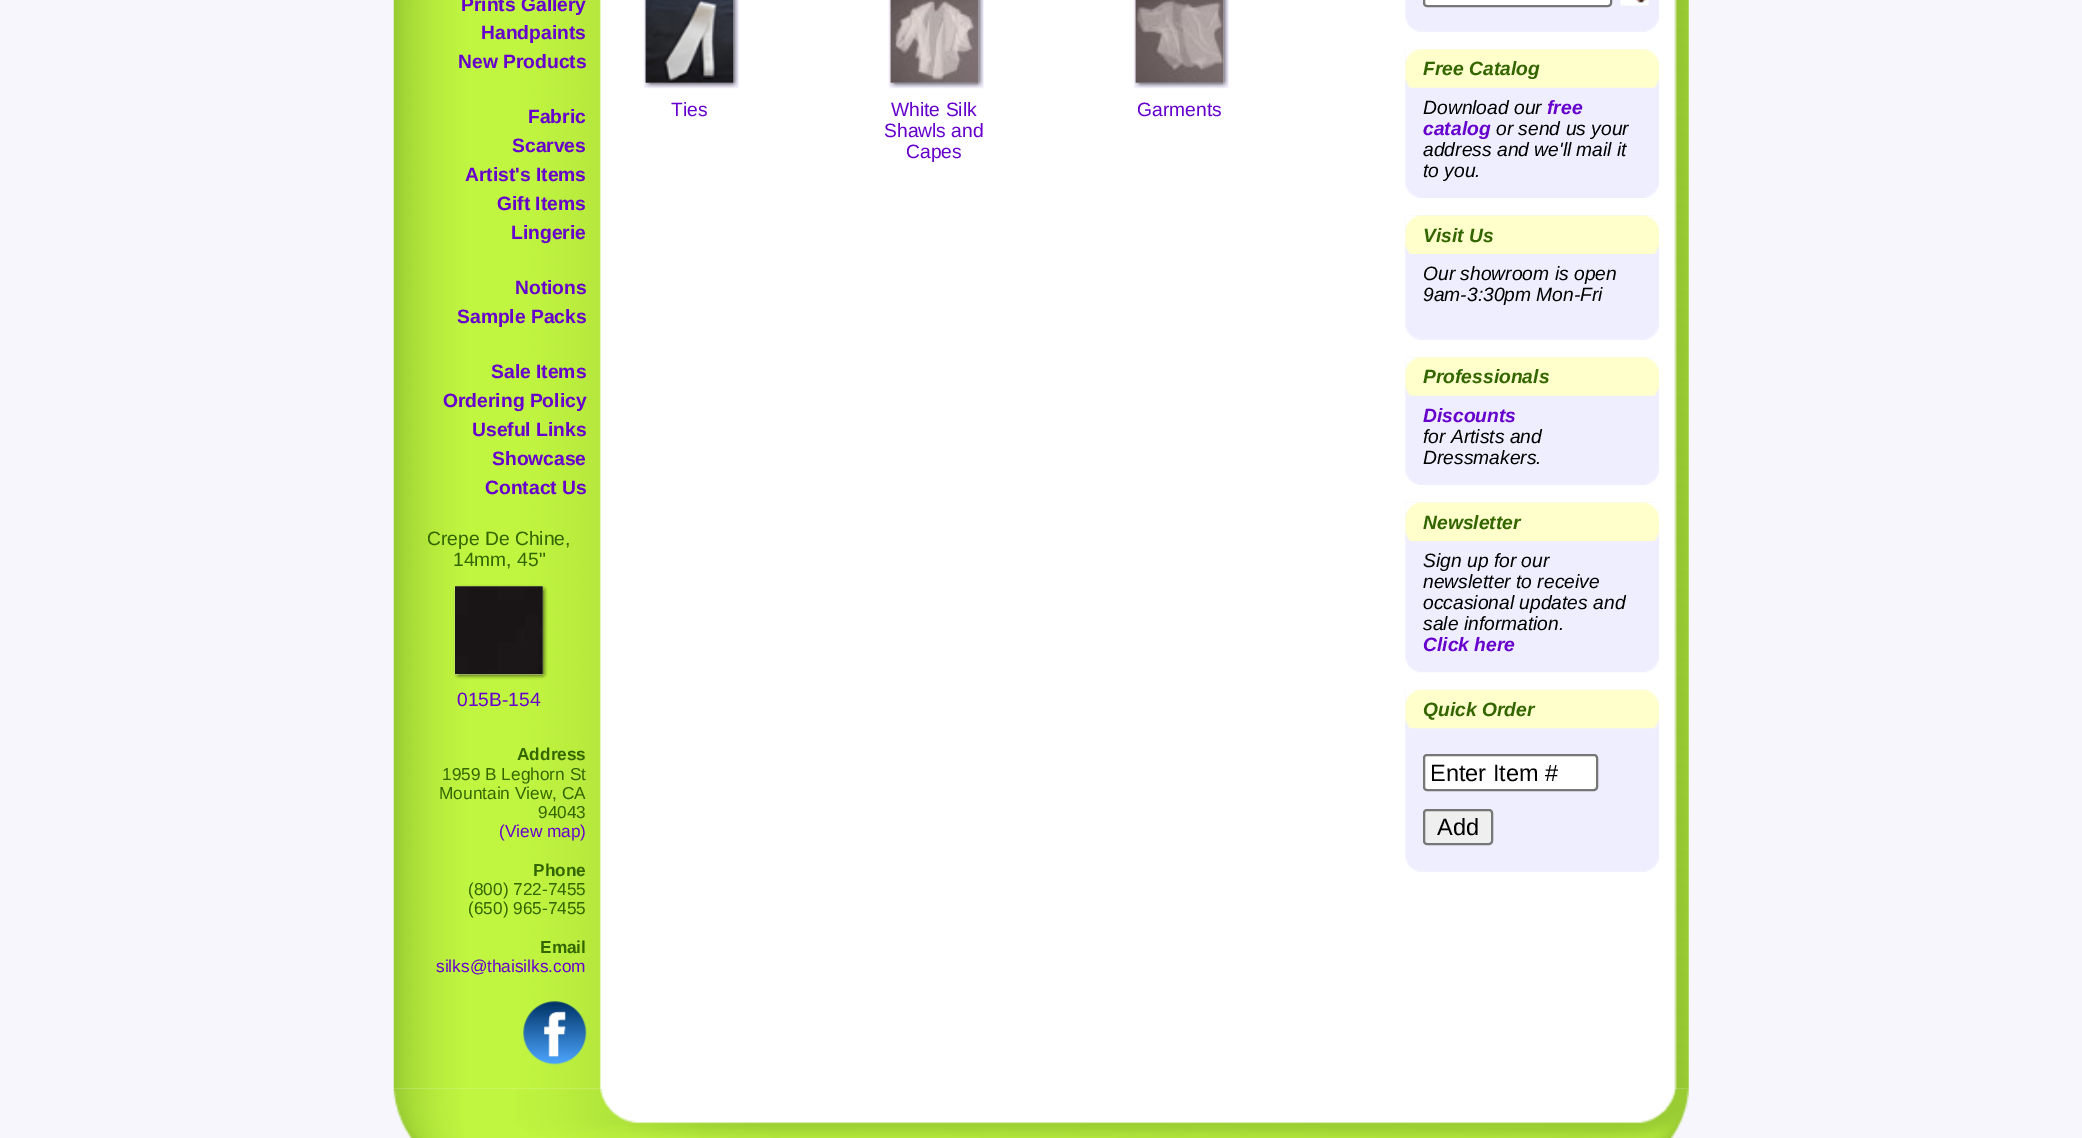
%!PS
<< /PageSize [2082 1138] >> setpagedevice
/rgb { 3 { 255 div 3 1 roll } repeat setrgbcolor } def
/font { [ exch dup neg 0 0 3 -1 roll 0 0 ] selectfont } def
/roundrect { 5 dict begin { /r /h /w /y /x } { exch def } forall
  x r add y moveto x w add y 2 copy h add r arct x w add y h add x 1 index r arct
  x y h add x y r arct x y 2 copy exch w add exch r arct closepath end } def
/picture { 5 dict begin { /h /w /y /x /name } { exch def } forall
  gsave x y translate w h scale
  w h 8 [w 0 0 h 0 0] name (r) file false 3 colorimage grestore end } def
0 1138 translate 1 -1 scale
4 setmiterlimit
247 246 253 rgb
0 0 2082 1138 rectfill
(img/21.rgb) 393 1088 1296 50 picture
(img/1.rgb) 393 0 1296 1089 picture
(img/2.rgb) 453 584 95 96 picture
(img/3.rgb) 455 586 88 88 picture
(img/4.rgb) 523 1001 64 64 picture
(img/5.rgb) 643 0 96 89 picture
(img/6.rgb) 645 0 89 83 picture
(img/7.rgb) 888 0 96 89 picture
(img/8.rgb) 890 0 89 83 picture
(img/9.rgb) 1133 0 96 89 picture
(img/10.rgb) 1135 0 89 83 picture
(img/11.rgb) 1405 0 254 32 picture
255 255 255 rgb
1424 -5 187 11 3 roundrect gsave fill grestore
118 118 118 rgb
2 setlinewidth
stroke
(img/12.rgb) 1620 0 29 6 picture
(img/13.rgb) 1405 49 254 149 picture
(img/14.rgb) 1405 49 254 39 picture
(img/15.rgb) 1405 215 254 125 picture
(img/16.rgb) 1405 215 254 39 picture
(img/17.rgb) 1405 357 254 128 picture
(img/14.rgb) 1405 357 254 39 picture
(img/18.rgb) 1405 502 254 171 picture
(img/16.rgb) 1405 502 254 39 picture
(img/19.rgb) 1405 689 254 183 picture
(img/20.rgb) 1405 689 254 40 picture
255 255 255 rgb
1424 755 173 35 3 roundrect gsave fill grestore
118 118 118 rgb
stroke
239 239 239 rgb
1424 810 68 34 3 roundrect gsave fill grestore
118 118 118 rgb
stroke
/LiberationSans-Bold 19.25 font
102 0 204 rgb
[
  [(Prints Gallery) 461 11]
  [(Handpaints) 481 39]
  [(New Products) 458 68]
  [(Fabric) 528 123]
  [(Scarves) 512 152]
  [(Artist's Items) 465 181]
  [(Gift Items) 497 210]
  [(Lingerie) 511 239]
  [(Notions) 515 294]
  [(Sample Packs) 457 323]
  [(Sale Items) 491 378]
  [(Ordering Policy) 443 407]
  [(Useful Links) 472 436]
  [(Showcase) 492 465]
  [(Contact Us) 485 494]
] { aload pop moveto show } forall
/LiberationSans-Regular 19.25 font
51 102 0 rgb
427 545 moveto (Crepe De Chine,) show
453 566 moveto (14mm, 45") show
102 0 204 rgb
457 706 moveto (015B-154) show
/LiberationSans-Bold 17.25 font
51 102 0 rgb
517 760 moveto (Address) show
/LiberationSans-Regular 17.25 font
[
  [(1959 B Leghorn St) 442 780]
  [(Mountain View, CA) 439 799]
  [(94043) 538 818]
] { aload pop moveto show } forall
102 0 204 rgb
499 837 moveto (\(View map\)) show
/LiberationSans-Bold 17.25 font
51 102 0 rgb
533 876 moveto (Phone) show
/LiberationSans-Regular 17.25 font
468 895 moveto (\(800\) 722-7455) show
468 914 moveto (\(650\) 965-7455) show
/LiberationSans-Bold 17.25 font
540 953 moveto (Email) show
/LiberationSans-Regular 17.25 font
102 0 204 rgb
436 972 moveto (silks@thaisilks.com) show
/LiberationSans-Regular 19.25 font
[
  [(Ties) 671 116]
  [(White Silk) 891 116]
  [(Shawls and) 884 137]
  [(Capes) 906 158]
  [(Garments) 1137 116]
] { aload pop moveto show } forall
/LiberationSans-BoldItalic 19.25 font
51 102 0 rgb
1423 75 moveto (Free Catalog) show
/LiberationSans-Italic 19.25 font
0 0 0 rgb
1423 114 moveto (Download our) show
/LiberationSans-BoldItalic 19.25 font
102 0 204 rgb
1547 114 moveto (free) show
1423 135 moveto (catalog) show
/LiberationSans-Italic 19.25 font
0 0 0 rgb
[
  [(or send us your) 1496 135]
  [(address and we'll mail it) 1423 156]
  [(to you.) 1423 177]
] { aload pop moveto show } forall
/LiberationSans-BoldItalic 19.25 font
51 102 0 rgb
1423 242 moveto (Visit Us) show
/LiberationSans-Italic 19.25 font
0 0 0 rgb
1423 280 moveto (Our showroom is open) show
1423 301 moveto (9am-3:30pm Mon-Fri) show
/LiberationSans-BoldItalic 19.25 font
51 102 0 rgb
1423 383 moveto (Professionals) show
102 0 204 rgb
1423 422 moveto (Discounts) show
/LiberationSans-Italic 19.25 font
0 0 0 rgb
1423 443 moveto (for Artists and) show
1423 464 moveto (Dressmakers.) show
/LiberationSans-BoldItalic 19.25 font
51 102 0 rgb
1423 529 moveto (Newsletter) show
/LiberationSans-Italic 19.25 font
0 0 0 rgb
[
  [(Sign up for our) 1423 567]
  [(newsletter to receive) 1423 588]
  [(occasional updates and) 1423 609]
  [(sale information.) 1423 630]
] { aload pop moveto show } forall
/LiberationSans-BoldItalic 19.25 font
102 0 204 rgb
1423 651 moveto (Click here) show
51 102 0 rgb
1423 716 moveto (Quick Order) show
/LiberationSans-Regular 23.5 font
0 0 0 rgb
1430 781 moveto (Enter Item #) show
1437 835 moveto (Add) show
showpage
